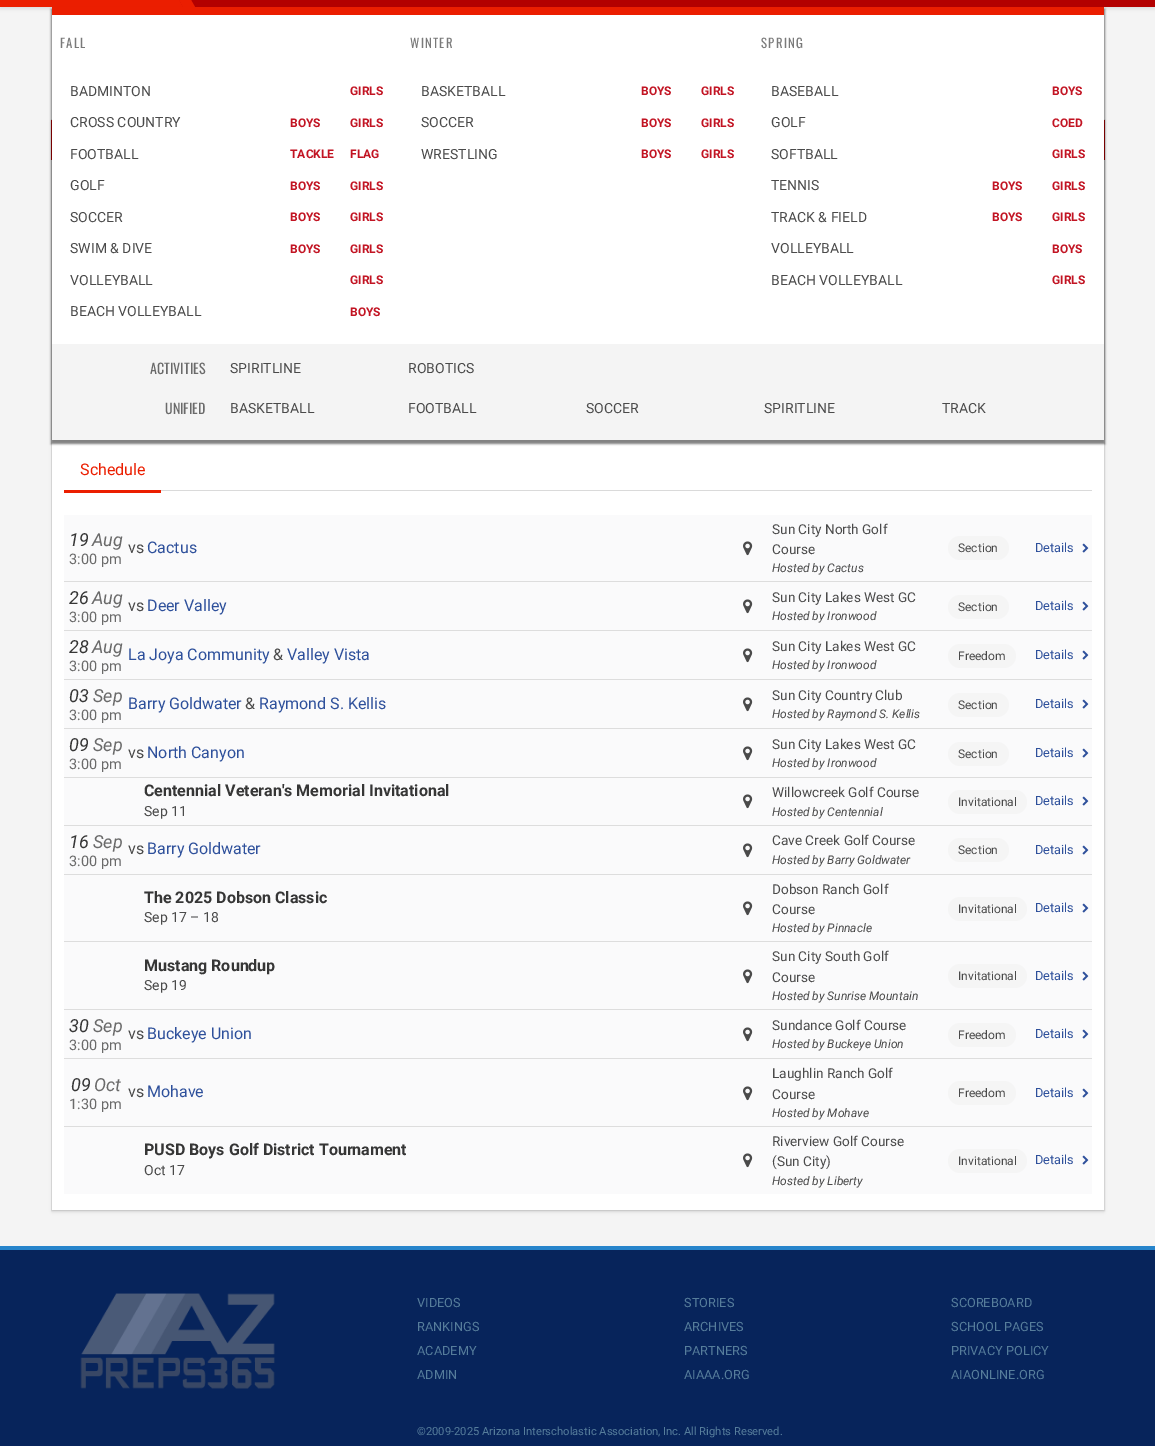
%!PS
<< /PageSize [1155 1446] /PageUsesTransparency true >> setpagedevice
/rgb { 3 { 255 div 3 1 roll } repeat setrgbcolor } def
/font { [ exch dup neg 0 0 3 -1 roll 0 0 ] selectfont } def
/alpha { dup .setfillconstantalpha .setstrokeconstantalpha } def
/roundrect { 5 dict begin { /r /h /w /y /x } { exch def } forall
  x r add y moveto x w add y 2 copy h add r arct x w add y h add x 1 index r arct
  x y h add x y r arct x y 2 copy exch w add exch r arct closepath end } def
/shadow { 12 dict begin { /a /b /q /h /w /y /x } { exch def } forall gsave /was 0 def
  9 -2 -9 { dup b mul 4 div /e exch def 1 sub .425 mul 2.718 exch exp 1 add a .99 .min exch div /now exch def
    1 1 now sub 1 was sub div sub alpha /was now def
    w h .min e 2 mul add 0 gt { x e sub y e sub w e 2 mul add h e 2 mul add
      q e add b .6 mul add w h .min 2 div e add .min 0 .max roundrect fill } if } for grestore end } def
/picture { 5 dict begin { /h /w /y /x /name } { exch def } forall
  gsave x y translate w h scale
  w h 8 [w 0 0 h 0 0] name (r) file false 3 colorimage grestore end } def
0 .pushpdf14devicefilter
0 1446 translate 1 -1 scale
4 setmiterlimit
244 244 244 rgb
0 0 1155 1446 rectfill
10 10 10 rgb
0 -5 1155 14 0 1.5 0.1 shadow
179 0 0 rgb
179 0 976 7 rectfill
235 30 0 rgb
0 0 172 7 rectfill
148 -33 moveto 160 -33 lineto 183 7 lineto 171 7 lineto closepath fill
160 -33 moveto 172 -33 lineto 195 7 lineto 183 7 lineto closepath fill
221 221 221 rgb
51.5 119.5 1053 1091 rectstroke
10 10 10 rgb
52 122 1052 1090 0 1.5 0.1 shadow
[
  [51 120 1054 40 179 0 0]
  [52 15 1052 329 255 255 255]
  [52 440 1052 770 255 255 255]
] { aload pop rgb rectfill } forall
gsave
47 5 moveto 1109 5 lineto 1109 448 lineto 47 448 lineto closepath 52 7 moveto 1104 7 lineto 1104 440 lineto 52 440 lineto closepath eoclip newpath
0 0 0 rgb
51 9 1054 435 0 1 0.5 shadow
grestore
[
  [52 7 1052 8 235 30 0]
  [52 344 1052 96 244 244 244]
  [161 490 931 1 218 218 218]
  [64 490 97 3 235 30 0]
  [64 515 1028 66 250 250 251]
] { aload pop rgb rectfill } forall
(img/1.rgb) 743 541 10 15 picture
245 245 245 rgb
948 536 61 24 12 roundrect fill
(img/2.rgb) 1082 543 7 10 picture
250 250 251 rgb
64 582 1028 48 rectfill
221 221 221 rgb
64 581 1028 1 rectfill
(img/1.rgb) 743 599 10 15 picture
245 245 245 rgb
948 595 61 24 12 roundrect fill
(img/2.rgb) 1082 601 7 10 picture
250 250 251 rgb
64 631 1028 48 rectfill
221 221 221 rgb
64 630 1028 1 rectfill
(img/1.rgb) 743 648 10 15 picture
245 245 245 rgb
948 644 68 24 12 roundrect fill
(img/2.rgb) 1082 650 7 10 picture
250 250 251 rgb
64 680 1028 48 rectfill
221 221 221 rgb
64 679 1028 1 rectfill
(img/1.rgb) 743 697 10 15 picture
245 245 245 rgb
948 693 61 24 12 roundrect fill
(img/2.rgb) 1082 699 7 10 picture
250 250 251 rgb
64 729 1028 48 rectfill
221 221 221 rgb
64 728 1028 1 rectfill
(img/1.rgb) 743 746 10 15 picture
245 245 245 rgb
948 742 61 24 12 roundrect fill
(img/2.rgb) 1082 748 7 10 picture
250 250 251 rgb
64 778 1028 47 rectfill
221 221 221 rgb
64 777 1028 1 rectfill
(img/1.rgb) 743 794 10 15 picture
245 245 245 rgb
948 790 79 24 12 roundrect fill
(img/2.rgb) 1082 796 7 10 picture
250 250 251 rgb
64 826 1028 48 rectfill
221 221 221 rgb
64 825 1028 1 rectfill
(img/1.rgb) 743 843 10 15 picture
245 245 245 rgb
948 838 61 24 12 roundrect fill
(img/2.rgb) 1082 845 7 10 picture
250 250 251 rgb
64 875 1028 66 rectfill
221 221 221 rgb
64 874 1028 1 rectfill
(img/1.rgb) 743 901 10 15 picture
245 245 245 rgb
948 897 79 24 12 roundrect fill
(img/2.rgb) 1082 903 7 10 picture
250 250 251 rgb
64 942 1028 67 rectfill
221 221 221 rgb
64 941 1028 1 rectfill
(img/1.rgb) 743 969 10 15 picture
245 245 245 rgb
948 964 79 24 12 roundrect fill
(img/2.rgb) 1082 971 7 10 picture
250 250 251 rgb
64 1010 1028 48 rectfill
221 221 221 rgb
64 1009 1028 1 rectfill
(img/1.rgb) 743 1027 10 15 picture
245 245 245 rgb
948 1023 68 24 12 roundrect fill
(img/2.rgb) 1082 1029 7 10 picture
250 250 251 rgb
64 1059 1028 67 rectfill
221 221 221 rgb
64 1058 1028 1 rectfill
(img/1.rgb) 743 1086 10 15 picture
245 245 245 rgb
948 1081 68 24 12 roundrect fill
(img/2.rgb) 1082 1088 7 10 picture
250 250 251 rgb
64 1127 1028 67 rectfill
221 221 221 rgb
64 1126 1028 1 rectfill
(img/1.rgb) 743 1153 10 15 picture
245 245 245 rgb
948 1149 79 24 12 roundrect fill
(img/2.rgb) 1082 1155 7 10 picture
7 36 91 rgb
0 1250 1155 196 rectfill
38 132 203 rgb
0 1246 1155 4 rectfill
(img/3.rgb) 80 1293 195 96 picture
/Oswald-Regular 12.75 font
122 122 122 rgb
60 48 moveto 1.25 0 (FALL) ashow
/Roboto-Regular 14 font
74 74 74 rgb
70 96 moveto (BADMINTON) show
/Roboto-Bold 12 font
194 20 35 rgb
350 95 moveto (GIRLS) show
/Roboto-Regular 14 font
74 74 74 rgb
70 127 moveto (CROSS COUNTRY) show
/Roboto-Bold 12 font
194 20 35 rgb
290 127 moveto (BOYS) show
350 127 moveto (GIRLS) show
/Roboto-Regular 14 font
74 74 74 rgb
70 159 moveto (FOOTBALL) show
/Roboto-Bold 12 font
194 20 35 rgb
290 158 moveto (TACKLE) show
350 158 moveto (FLAG) show
/Roboto-Regular 14 font
74 74 74 rgb
70 190 moveto (GOLF) show
/Roboto-Bold 12 font
194 20 35 rgb
290 190 moveto (BOYS) show
350 190 moveto (GIRLS) show
/Roboto-Regular 14 font
74 74 74 rgb
70 222 moveto (SOCCER) show
/Roboto-Bold 12 font
194 20 35 rgb
290 221 moveto (BOYS) show
350 221 moveto (GIRLS) show
/Roboto-Regular 14 font
74 74 74 rgb
70 253 moveto (SWIM & DIVE) show
/Roboto-Bold 12 font
194 20 35 rgb
290 253 moveto (BOYS) show
350 253 moveto (GIRLS) show
/Roboto-Regular 14 font
74 74 74 rgb
70 285 moveto (VOLLEYBALL) show
/Roboto-Bold 12 font
194 20 35 rgb
350 284 moveto (GIRLS) show
/Roboto-Regular 14 font
74 74 74 rgb
70 316 moveto (BEACH VOLLEYBALL) show
/Roboto-Bold 12 font
194 20 35 rgb
350 316 moveto (BOYS) show
/Oswald-Regular 12.75 font
122 122 122 rgb
410 48 moveto 1.25 0 (WINTER) ashow
/Roboto-Regular 14 font
74 74 74 rgb
421 96 moveto (BASKETBALL) show
/Roboto-Bold 12 font
194 20 35 rgb
641 95 moveto (BOYS) show
701 95 moveto (GIRLS) show
/Roboto-Regular 14 font
74 74 74 rgb
421 127 moveto (SOCCER) show
/Roboto-Bold 12 font
194 20 35 rgb
641 127 moveto (BOYS) show
701 127 moveto (GIRLS) show
/Roboto-Regular 14 font
74 74 74 rgb
421 159 moveto (WRESTLING) show
/Roboto-Bold 12 font
194 20 35 rgb
641 158 moveto (BOYS) show
701 158 moveto (GIRLS) show
/Oswald-Regular 12.75 font
122 122 122 rgb
761 48 moveto 1.25 0 (SPRING) ashow
/Roboto-Regular 14 font
74 74 74 rgb
771 96 moveto (BASEBALL) show
/Roboto-Bold 12 font
194 20 35 rgb
1052 95 moveto (BOYS) show
/Roboto-Regular 14 font
74 74 74 rgb
771 127 moveto (GOLF) show
/Roboto-Bold 12 font
194 20 35 rgb
1052 127 moveto (COED) show
/Roboto-Regular 14 font
74 74 74 rgb
771 159 moveto (SOFTBALL) show
/Roboto-Bold 12 font
194 20 35 rgb
1052 158 moveto (GIRLS) show
/Roboto-Regular 14 font
74 74 74 rgb
771 190 moveto (TENNIS) show
/Roboto-Bold 12 font
194 20 35 rgb
992 190 moveto (BOYS) show
1052 190 moveto (GIRLS) show
/Roboto-Regular 14 font
74 74 74 rgb
771 222 moveto (TRACK & FIELD) show
/Roboto-Bold 12 font
194 20 35 rgb
992 221 moveto (BOYS) show
1052 221 moveto (GIRLS) show
/Roboto-Regular 14 font
74 74 74 rgb
771 253 moveto (VOLLEYBALL) show
/Roboto-Bold 12 font
194 20 35 rgb
1052 253 moveto (BOYS) show
/Roboto-Regular 14 font
74 74 74 rgb
771 285 moveto (BEACH VOLLEYBALL) show
/Roboto-Bold 12 font
194 20 35 rgb
1052 284 moveto (GIRLS) show
/Oswald-Regular 14 font
106 106 106 rgb
150 374 moveto (ACTIVITIES) show
/Roboto-Regular 14 font
74 74 74 rgb
230 373 moveto (SPIRITLINE) show
408 373 moveto (ROBOTICS) show
/Oswald-Regular 14 font
106 106 106 rgb
165 414 moveto (UNIFIED) show
/Roboto-Regular 14 font
74 74 74 rgb
[
  [(BASKETBALL) 230 413]
  [(FOOTBALL) 408 413]
  [(SOCCER) 586 413]
  [(SPIRITLINE) 764 413]
  [(TRACK) 942 413]
] { aload pop moveto show } forall
/Roboto-Regular 16 font
235 30 0 rgb
80 475 moveto (Schedule) show
/Roboto-Italic 18 font
54 54 54 rgb
69 546 moveto (19) show
106 106 106 rgb
92 546 moveto (Aug) show
/Roboto-Regular 14.5 font
69 564 moveto (3:00 pm) show
/Roboto-Regular 16 font
74 74 74 rgb
128 553 moveto (vs) show
46 80 155 rgb
147 553 moveto (Cactus) show
/Roboto-Regular 13.6 font
74 74 74 rgb
772 534 moveto (Sun City North Golf) show
772 554 moveto (Course) show
/Roboto-Italic 12 font
772 572 moveto (Hosted by Cactus) show
/Roboto-Regular 12 font
958 552 moveto (Section) show
/Roboto-Regular 12.75 font
46 80 155 rgb
1035 552 moveto (Details) show
/Roboto-Italic 18 font
54 54 54 rgb
69 604 moveto (26) show
106 106 106 rgb
92 604 moveto (Aug) show
/Roboto-Regular 14.5 font
69 622 moveto (3:00 pm) show
/Roboto-Regular 16 font
74 74 74 rgb
128 611 moveto (vs) show
46 80 155 rgb
147 611 moveto (Deer Valley) show
/Roboto-Regular 13.6 font
74 74 74 rgb
772 602 moveto (Sun City Lakes West GC) show
/Roboto-Italic 12 font
772 620 moveto (Hosted by Ironwood) show
/Roboto-Regular 12 font
958 611 moveto (Section) show
/Roboto-Regular 12.75 font
46 80 155 rgb
1035 610 moveto (Details) show
/Roboto-Italic 18 font
54 54 54 rgb
69 653 moveto (28) show
106 106 106 rgb
92 653 moveto (Aug) show
/Roboto-Regular 14.5 font
69 671 moveto (3:00 pm) show
/Roboto-Regular 16 font
46 80 155 rgb
128 660 moveto (La Joya Community) show
74 74 74 rgb
273 660 moveto (&) show
46 80 155 rgb
287 660 moveto (Valley Vista) show
/Roboto-Regular 13.6 font
74 74 74 rgb
772 651 moveto (Sun City Lakes West GC) show
/Roboto-Italic 12 font
772 669 moveto (Hosted by Ironwood) show
/Roboto-Regular 12 font
958 660 moveto (Freedom) show
/Roboto-Regular 12.75 font
46 80 155 rgb
1035 659 moveto (Details) show
/Roboto-Italic 18 font
54 54 54 rgb
69 702 moveto (03) show
106 106 106 rgb
93 702 moveto (Sep) show
/Roboto-Regular 14.5 font
69 720 moveto (3:00 pm) show
/Roboto-Regular 16 font
46 80 155 rgb
128 709 moveto (Barry Goldwater) show
74 74 74 rgb
245 709 moveto (&) show
46 80 155 rgb
259 709 moveto (Raymond S. Kellis) show
/Roboto-Regular 13.6 font
74 74 74 rgb
772 700 moveto (Sun City Country Club) show
/Roboto-Italic 12 font
772 718 moveto (Hosted by Raymond S. Kellis) show
/Roboto-Regular 12 font
958 709 moveto (Section) show
/Roboto-Regular 12.75 font
46 80 155 rgb
1035 708 moveto (Details) show
/Roboto-Italic 18 font
54 54 54 rgb
69 751 moveto (09) show
106 106 106 rgb
93 751 moveto (Sep) show
/Roboto-Regular 14.5 font
69 769 moveto (3:00 pm) show
/Roboto-Regular 16 font
74 74 74 rgb
128 758 moveto (vs) show
46 80 155 rgb
147 758 moveto (North Canyon) show
/Roboto-Regular 13.6 font
74 74 74 rgb
772 749 moveto (Sun City Lakes West GC) show
/Roboto-Italic 12 font
772 767 moveto (Hosted by Ironwood) show
/Roboto-Regular 12 font
958 758 moveto (Section) show
/Roboto-Regular 12.75 font
46 80 155 rgb
1035 757 moveto (Details) show
/Roboto-Bold 16 font
54 54 54 rgb
144 796 moveto (Centennial Veteran's Memorial Invitational) show
/Roboto-Regular 14 font
74 74 74 rgb
144 816 moveto (Sep 11) show
/Roboto-Regular 13.6 font
772 797 moveto (Willowcreek Golf Course) show
/Roboto-Italic 12 font
772 816 moveto (Hosted by Centennial) show
/Roboto-Regular 12 font
958 806 moveto (Invitational) show
/Roboto-Regular 12.75 font
46 80 155 rgb
1035 805 moveto (Details) show
/Roboto-Italic 18 font
54 54 54 rgb
69 848 moveto (16) show
106 106 106 rgb
93 848 moveto (Sep) show
/Roboto-Regular 14.5 font
69 866 moveto (3:00 pm) show
/Roboto-Regular 16 font
74 74 74 rgb
128 854 moveto (vs) show
46 80 155 rgb
147 854 moveto (Barry Goldwater) show
/Roboto-Regular 13.6 font
74 74 74 rgb
772 845 moveto (Cave Creek Golf Course) show
/Roboto-Italic 12 font
772 864 moveto (Hosted by Barry Goldwater) show
/Roboto-Regular 12 font
958 854 moveto (Section) show
/Roboto-Regular 12.75 font
46 80 155 rgb
1035 854 moveto (Details) show
/Roboto-Bold 16 font
54 54 54 rgb
144 903 moveto (The 2025 Dobson Classic) show
/Roboto-Regular 14 font
74 74 74 rgb
144 922 moveto (Sep 17 – 18) show
/Roboto-Regular 13.6 font
772 894 moveto (Dobson Ranch Golf) show
772 914 moveto (Course) show
/Roboto-Italic 12 font
772 932 moveto (Hosted by Pinnacle) show
/Roboto-Regular 12 font
958 913 moveto (Invitational) show
/Roboto-Regular 12.75 font
46 80 155 rgb
1035 912 moveto (Details) show
/Roboto-Bold 16 font
54 54 54 rgb
144 971 moveto (Mustang Roundup) show
/Roboto-Regular 14 font
74 74 74 rgb
144 990 moveto (Sep 19) show
/Roboto-Regular 13.6 font
772 961 moveto (Sun City South Golf) show
772 982 moveto (Course) show
/Roboto-Italic 12 font
772 1000 moveto (Hosted by Sunrise Mountain) show
/Roboto-Regular 12 font
958 980 moveto (Invitational) show
/Roboto-Regular 12.75 font
46 80 155 rgb
1035 980 moveto (Details) show
/Roboto-Italic 18 font
54 54 54 rgb
69 1032 moveto (30) show
106 106 106 rgb
93 1032 moveto (Sep) show
/Roboto-Regular 14.5 font
69 1050 moveto (3:00 pm) show
/Roboto-Regular 16 font
74 74 74 rgb
128 1039 moveto (vs) show
46 80 155 rgb
147 1039 moveto (Buckeye Union) show
/Roboto-Regular 13.6 font
74 74 74 rgb
772 1030 moveto (Sundance Golf Course) show
/Roboto-Italic 12 font
772 1048 moveto (Hosted by Buckeye Union) show
/Roboto-Regular 12 font
958 1039 moveto (Freedom) show
/Roboto-Regular 12.75 font
46 80 155 rgb
1035 1038 moveto (Details) show
/Roboto-Italic 18 font
54 54 54 rgb
71 1091 moveto (09) show
106 106 106 rgb
94 1091 moveto (Oct) show
/Roboto-Regular 14.5 font
69 1109 moveto (1:30 pm) show
/Roboto-Regular 16 font
74 74 74 rgb
128 1097 moveto (vs) show
46 80 155 rgb
147 1097 moveto (Mohave) show
/Roboto-Regular 13.6 font
74 74 74 rgb
772 1078 moveto (Laughlin Ranch Golf) show
772 1099 moveto (Course) show
/Roboto-Italic 12 font
772 1117 moveto (Hosted by Mohave) show
/Roboto-Regular 12 font
958 1097 moveto (Freedom) show
/Roboto-Regular 12.75 font
46 80 155 rgb
1035 1097 moveto (Details) show
/Roboto-Bold 16 font
54 54 54 rgb
144 1155 moveto (PUSD Boys Golf District Tournament) show
/Roboto-Regular 14 font
74 74 74 rgb
144 1175 moveto (Oct 17) show
/Roboto-Regular 13.6 font
772 1146 moveto (Riverview Golf Course) show
772 1166 moveto (\(Sun City\)) show
/Roboto-Italic 12 font
772 1185 moveto (Hosted by Liberty) show
/Roboto-Regular 12 font
958 1165 moveto (Invitational) show
/Roboto-Regular 12.75 font
46 80 155 rgb
1035 1164 moveto (Details) show
86 125 155 rgb
[
  [(VIDEOS) 417 1307]
  [(RANKINGS) 417 1331]
  [(ACADEMY) 417 1355]
  [(ADMIN) 417 1379]
  [(STORIES) 684 1307]
  [(ARCHIVES) 684 1331]
  [(PARTNERS) 684 1355]
  [(AIAAA.ORG) 684 1379]
  [(SCOREBOARD) 951 1307]
  [(SCHOOL PAGES) 951 1331]
  [(PRIVACY POLICY) 951 1355]
  [(AIAONLINE.ORG) 951 1379]
] { aload pop moveto show } forall
/Roboto-Regular 11.2 font
417 1435 moveto (©2009-2025 Arizona Interscholastic Association, Inc. All Rights Reserved.) show
.poppdf14devicefilter showpage
